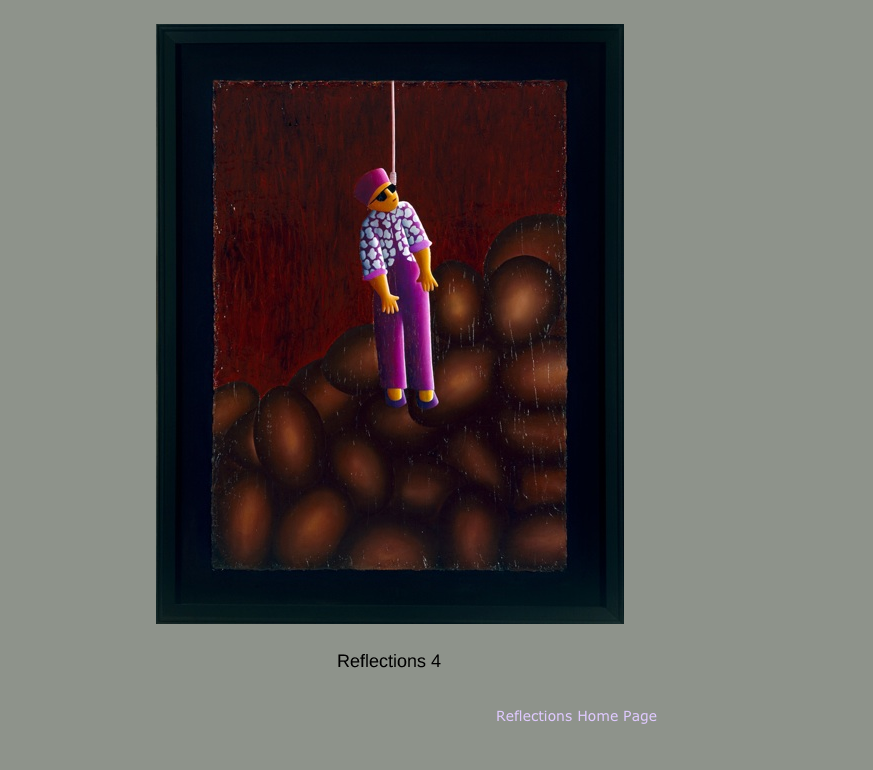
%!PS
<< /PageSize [873 770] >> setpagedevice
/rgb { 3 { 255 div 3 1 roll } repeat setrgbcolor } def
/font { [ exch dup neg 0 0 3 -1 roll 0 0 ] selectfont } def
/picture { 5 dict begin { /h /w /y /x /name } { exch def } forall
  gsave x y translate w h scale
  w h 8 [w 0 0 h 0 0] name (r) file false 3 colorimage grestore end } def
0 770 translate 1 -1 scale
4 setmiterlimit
142 147 139 rgb
0 0 873 770 rectfill
(img/1.rgb) 156 24 468 600 picture
(img/2.rgb) 497 710 160 14 picture
/LiberationSans-Regular 18 font
0 0 0 rgb
337 667 moveto (Reflections 4) show
showpage
